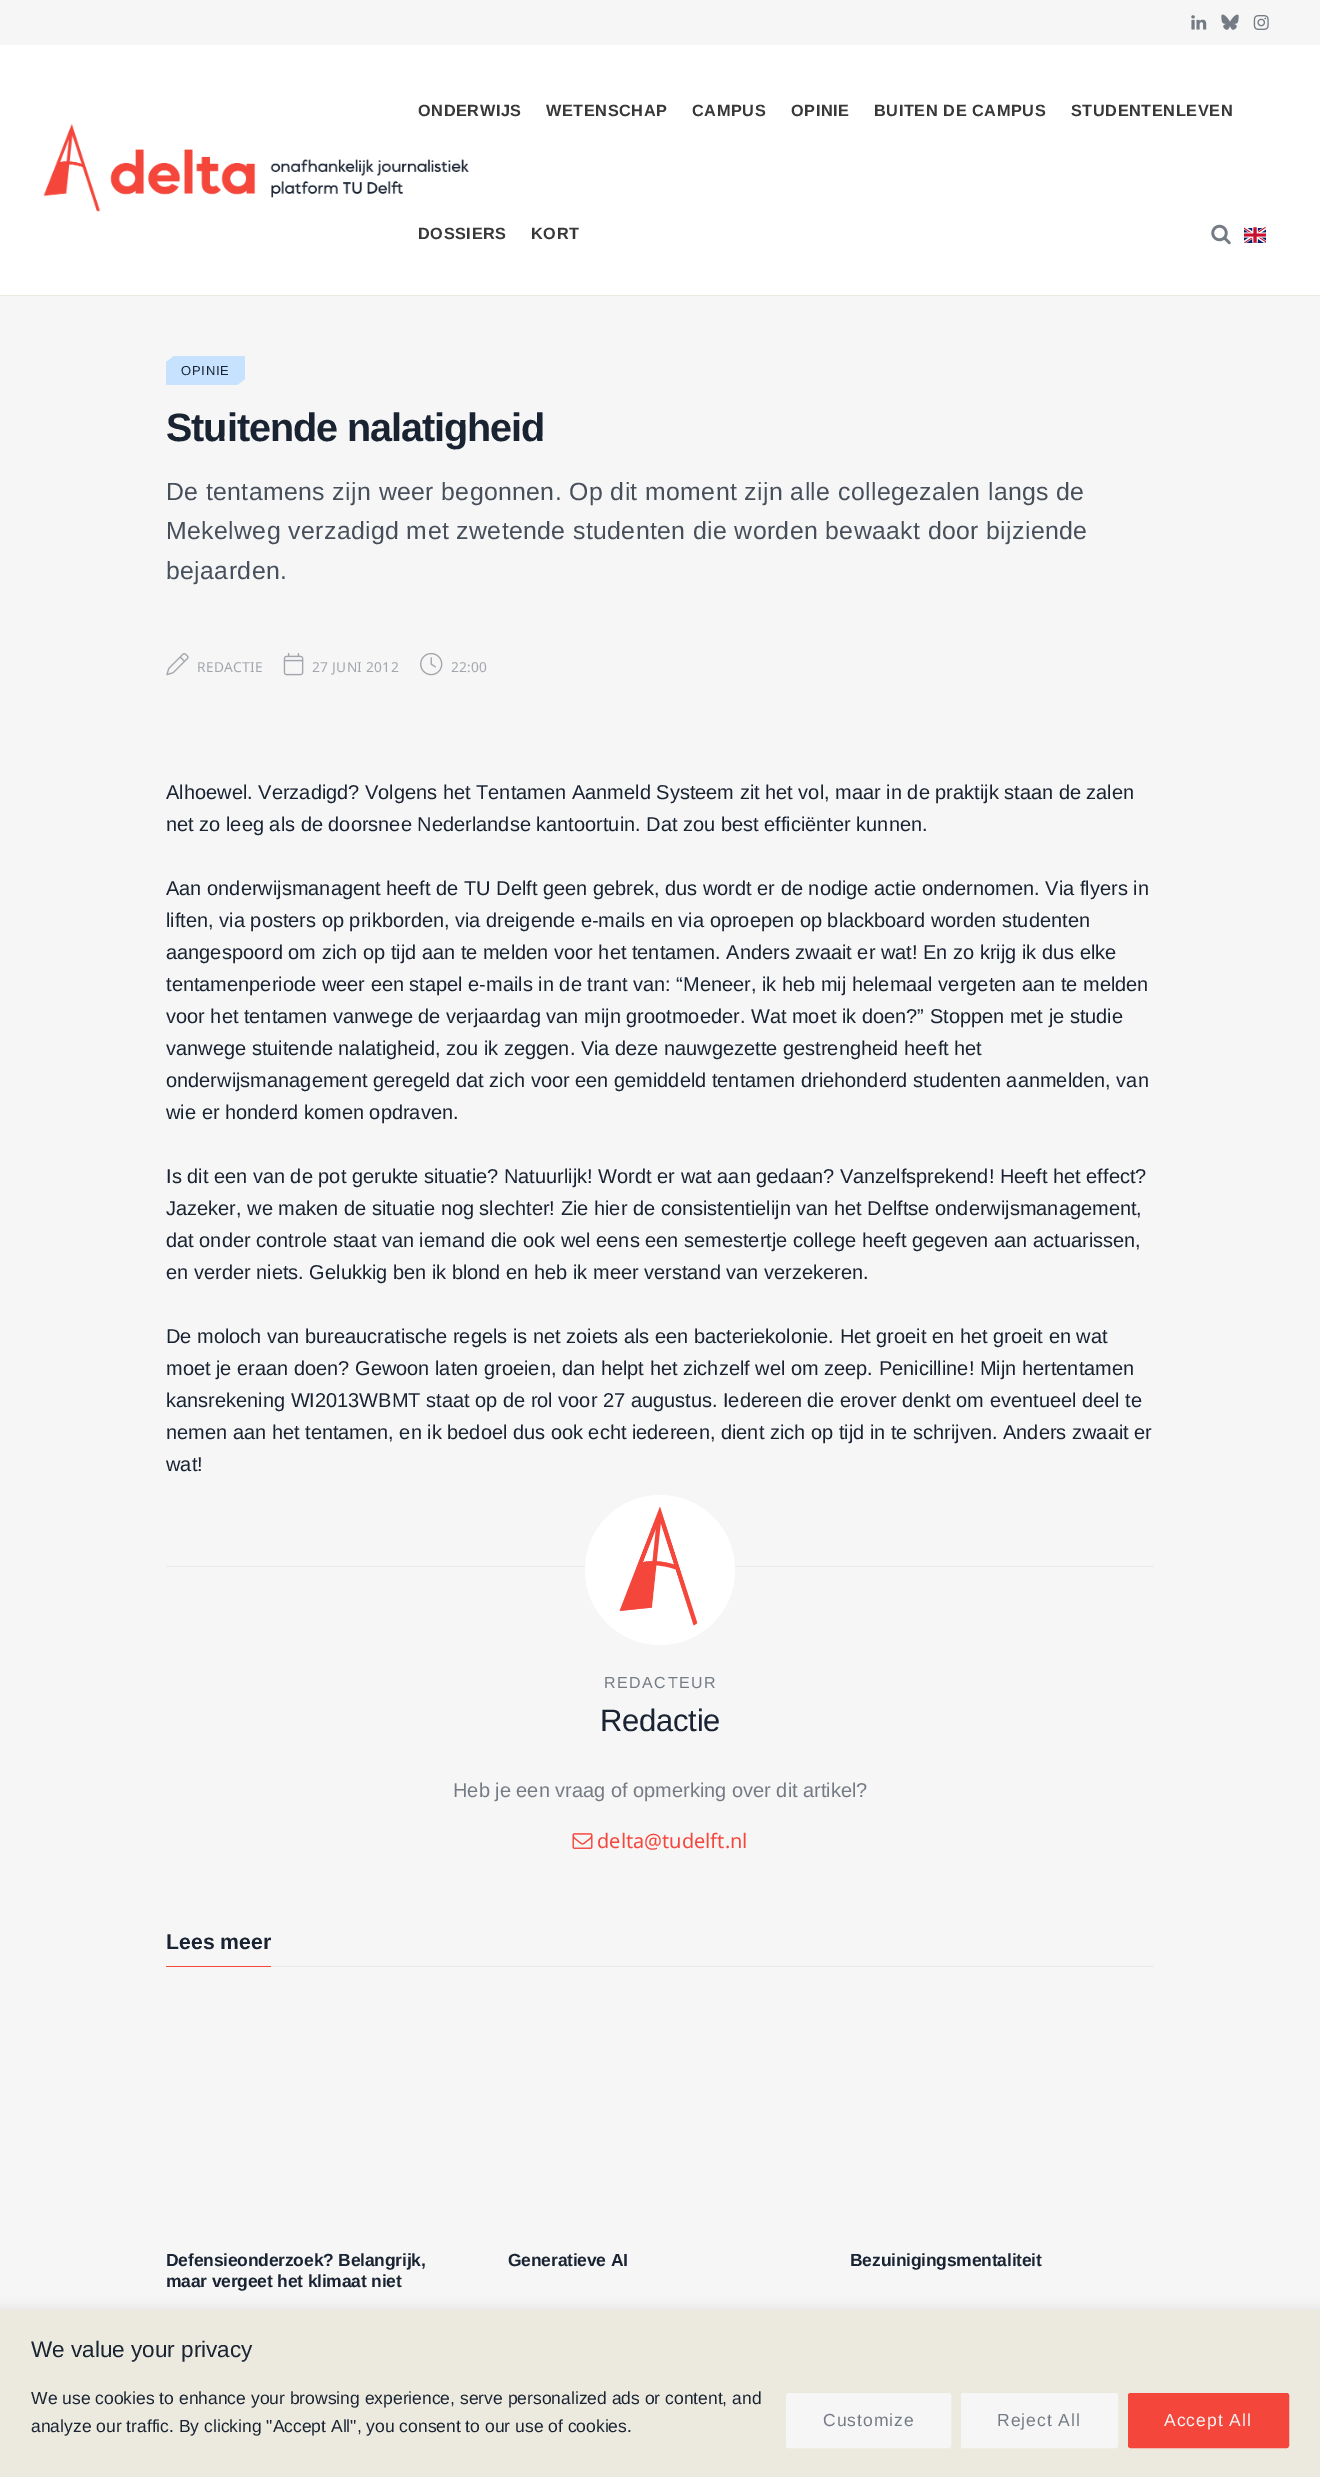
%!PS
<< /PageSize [1320 2477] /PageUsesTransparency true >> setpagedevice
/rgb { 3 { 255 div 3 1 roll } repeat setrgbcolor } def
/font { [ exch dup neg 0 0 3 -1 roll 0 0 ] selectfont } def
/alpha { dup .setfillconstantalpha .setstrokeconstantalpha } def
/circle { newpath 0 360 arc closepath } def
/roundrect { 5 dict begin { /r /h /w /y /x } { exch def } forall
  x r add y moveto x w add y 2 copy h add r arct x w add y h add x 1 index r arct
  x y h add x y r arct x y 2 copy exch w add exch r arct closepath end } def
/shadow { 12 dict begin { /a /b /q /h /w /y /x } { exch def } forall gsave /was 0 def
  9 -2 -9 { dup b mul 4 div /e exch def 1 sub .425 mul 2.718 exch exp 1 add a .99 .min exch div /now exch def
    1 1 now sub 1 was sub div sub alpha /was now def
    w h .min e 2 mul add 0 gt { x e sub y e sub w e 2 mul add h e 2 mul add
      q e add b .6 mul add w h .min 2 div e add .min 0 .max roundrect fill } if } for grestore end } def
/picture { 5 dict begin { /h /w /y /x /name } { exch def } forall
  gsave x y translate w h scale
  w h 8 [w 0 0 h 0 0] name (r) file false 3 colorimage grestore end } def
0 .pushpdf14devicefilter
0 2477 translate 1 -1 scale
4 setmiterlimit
246 246 246 rgb
0 0 1320 2477 rectfill
236 234 222 rgb
0 295 1320 1 rectfill
(img/1.rgb) 1191 15 16 15 picture
(img/2.rgb) 1221 14 18 16 picture
(img/3.rgb) 1253 15 16 15 picture
255 255 255 rgb
0 45 1320 250 rectfill
(img/4.rgb) 43 123 426 89 picture
(img/5.rgb) 1211 224 20 21 picture
(img/6.rgb) 1244 227 22 16 picture
198 226 255 rgb
245 356 moveto 174 356 lineto 166 362 lineto 166 385 lineto 237 385 lineto 245 379 lineto closepath fill
(img/7.rgb) 166 653 23 23 picture
(img/8.rgb) 283 653 21 23 picture
(img/9.rgb) 420 652 23 24 picture
235 235 235 rgb
166 1566 988 1 rectfill
255 255 255 rgb
660 1570 75 circle fill
(img/10.rgb) 619 1506 79 120 picture
(img/11.rgb) 572 1833 21 16 picture
232 233 234 rgb
271 1966 883 1 rectfill
245 70 60 rgb
166 1966 105 1 rectfill
172 171 171 rgb
0 2309 1320 167 0 6 0.3 shadow
236 234 222 rgb
0 2310 1320 167 rectfill
246 246 246 rgb
787.5 2394.5 162 52 1 roundrect gsave fill grestore
3 setlinewidth
stroke
962.5 2394.5 154 52 1 roundrect gsave fill grestore
stroke
245 70 60 rgb
1129.5 2394.5 158 52 1 roundrect gsave fill grestore
stroke
/LiberationSans-Bold 16.25 font
56 56 56 rgb
418 116 moveto 0.6 0 (ONDERWIJS) ashow
546 116 moveto 0.6 0 (WETENSCHAP) ashow
692 116 moveto 0.6 0 (CAMPUS) ashow
791 116 moveto 0.6 0 (OPINIE) ashow
874 116 moveto 0.6 0 (BUITEN DE CAMPUS) ashow
1071 116 moveto 0.6 0 (STUDENTENLEVEN) ashow
418 239 moveto 0.6 0 (DOSSIERS) ashow
531 239 moveto 0.6 0 (KORT) ashow
/LiberationSans-Regular 13 font
25 35 50 rgb
181 375 moveto 0.75 0 (OPINIE) ashow
/LiberationSans-Bold 39.5 font
166 441 moveto -1 0 (Stuitende nalatigheid) ashow
/LiberationSans-Regular 24.8 font
71 79 91 rgb
166 500 moveto 0.4 0 (De tentamens zijn weer begonnen. Op dit moment zijn alle collegezalen langs de) ashow
166 539 moveto 0.4 0 (Mekelweg verzadigd met zwetende studenten die worden bewaakt door bijziende) ashow
166 579 moveto 0.4 0 (bejaarden.) ashow
/NotoSans-Regular 13.75 font
163 167 173 rgb
197 672 moveto 0.3 0 (REDACTIE) ashow
312 672 moveto 0.3 0 (27 JUNI 2012) ashow
451 672 moveto 0.3 0 (22:00) ashow
/LiberationSans-Regular 20 font
25 35 50 rgb
[
  [(Alhoewel. Verzadigd? Volgens het Tentamen Aanmeld Systeem zit het vol, maar in de praktijk staan de zalen) 166 799]
  [(net zo leeg als de doorsnee Nederlandse kantoortuin. Dat zou best efficiënter kunnen.) 166 831]
  [(Aan onderwijsmanagent heeft de TU Delft geen gebrek, dus wordt er de nodige actie ondernomen. Via flyers in) 166 895]
  [(liften, via posters op prikborden, via dreigende e-mails en via oproepen op blackboard worden studenten) 166 927]
  [(aangespoord om zich op tijd aan te melden voor het tentamen. Anders zwaait er wat! En zo krijg ik dus elke) 166 959]
  [(tentamenperiode weer een stapel e-mails in de trant van: “Meneer, ik heb mij helemaal vergeten aan te melden) 166 991]
  [(voor het tentamen vanwege de verjaardag van mijn grootmoeder. Wat moet ik doen?” Stoppen met je studie) 166 1023]
  [(vanwege stuitende nalatigheid, zou ik zeggen. Via deze nauwgezette gestrengheid heeft het) 166 1055]
  [(onderwijsmanagement geregeld dat zich voor een gemiddeld tentamen driehonderd studenten aanmelden, van) 166 1087]
  [(wie er honderd komen opdraven.) 166 1119]
  [(Is dit een van de pot gerukte situatie? Natuurlijk! Wordt er wat aan gedaan? Vanzelfsprekend! Heeft het effect?) 166 1183]
  [(Jazeker, we maken de situatie nog slechter! Zie hier de consistentielijn van het Delftse onderwijsmanagement,) 166 1215]
  [(dat onder controle staat van iemand die ook wel eens een semestertje college heeft gegeven aan actuarissen,) 166 1247]
  [(en verder niets. Gelukkig ben ik blond en heb ik meer verstand van verzekeren.) 166 1279]
  [(De moloch van bureaucratische regels is net zoiets als een bacteriekolonie. Het groeit en het groeit en wat) 166 1343]
  [(moet je eraan doen? Gewoon laten groeien, dan helpt het zichzelf wel om zeep. Penicilline! Mijn hertentamen) 166 1375]
  [(kansrekening WI2013WBMT staat op de rol voor 27 augustus. Iedereen die erover denkt om eventueel deel te) 166 1407]
  [(nemen aan het tentamen, en ik bedoel dus ook echt iedereen, dient zich op tijd in te schrijven. Anders zwaait er) 166 1439]
  [(wat!) 166 1471]
] { aload pop moveto show } forall
/LiberationSans-Regular 16 font
117 123 132 rgb
604 1688 moveto 1.5 0 (REDACTEUR) ashow
/LiberationSans-Regular 31 font
25 35 50 rgb
600 1731 moveto -0.25 0 (Redactie) ashow
/LiberationSans-Regular 20 font
117 123 132 rgb
453 1797 moveto (Heb je een vraag of opmerking over dit artikel?) show
/NotoSans-Regular 20 font
245 70 60 rgb
597 1848 moveto (delta@tudelft.nl) show
/LiberationSans-Bold 21.25 font
25 35 50 rgb
166 1949 moveto (Lees meer) show
/LiberationSans-Bold 17.5 font
166 2266 moveto -0.2 0 (Defensieonderzoek? Belangrijk,) ashow
166 2287 moveto -0.2 0 (maar vergeet het klimaat niet) ashow
508 2266 moveto -0.2 0 (Generatieve AI) ashow
850 2266 moveto -0.2 0 (Bezuinigingsmentaliteit) ashow
/LiberationSans-Regular 22.5 font
31 2357 moveto (We value your privacy) show
/LiberationSans-Regular 17.5 font
31 2404 moveto (We use cookies to enhance your browsing experience, serve personalized ads or content, and) show
31 2432 moveto (analyze our traffic. By clicking "Accept All", you consent to our use of cookies.) show
117 123 132 rgb
823 2426 moveto 1 0 (Customize) ashow
997 2426 moveto 1 0 (Reject All) ashow
246 246 246 rgb
1164 2426 moveto 1 0 (Accept All) ashow
.poppdf14devicefilter showpage
